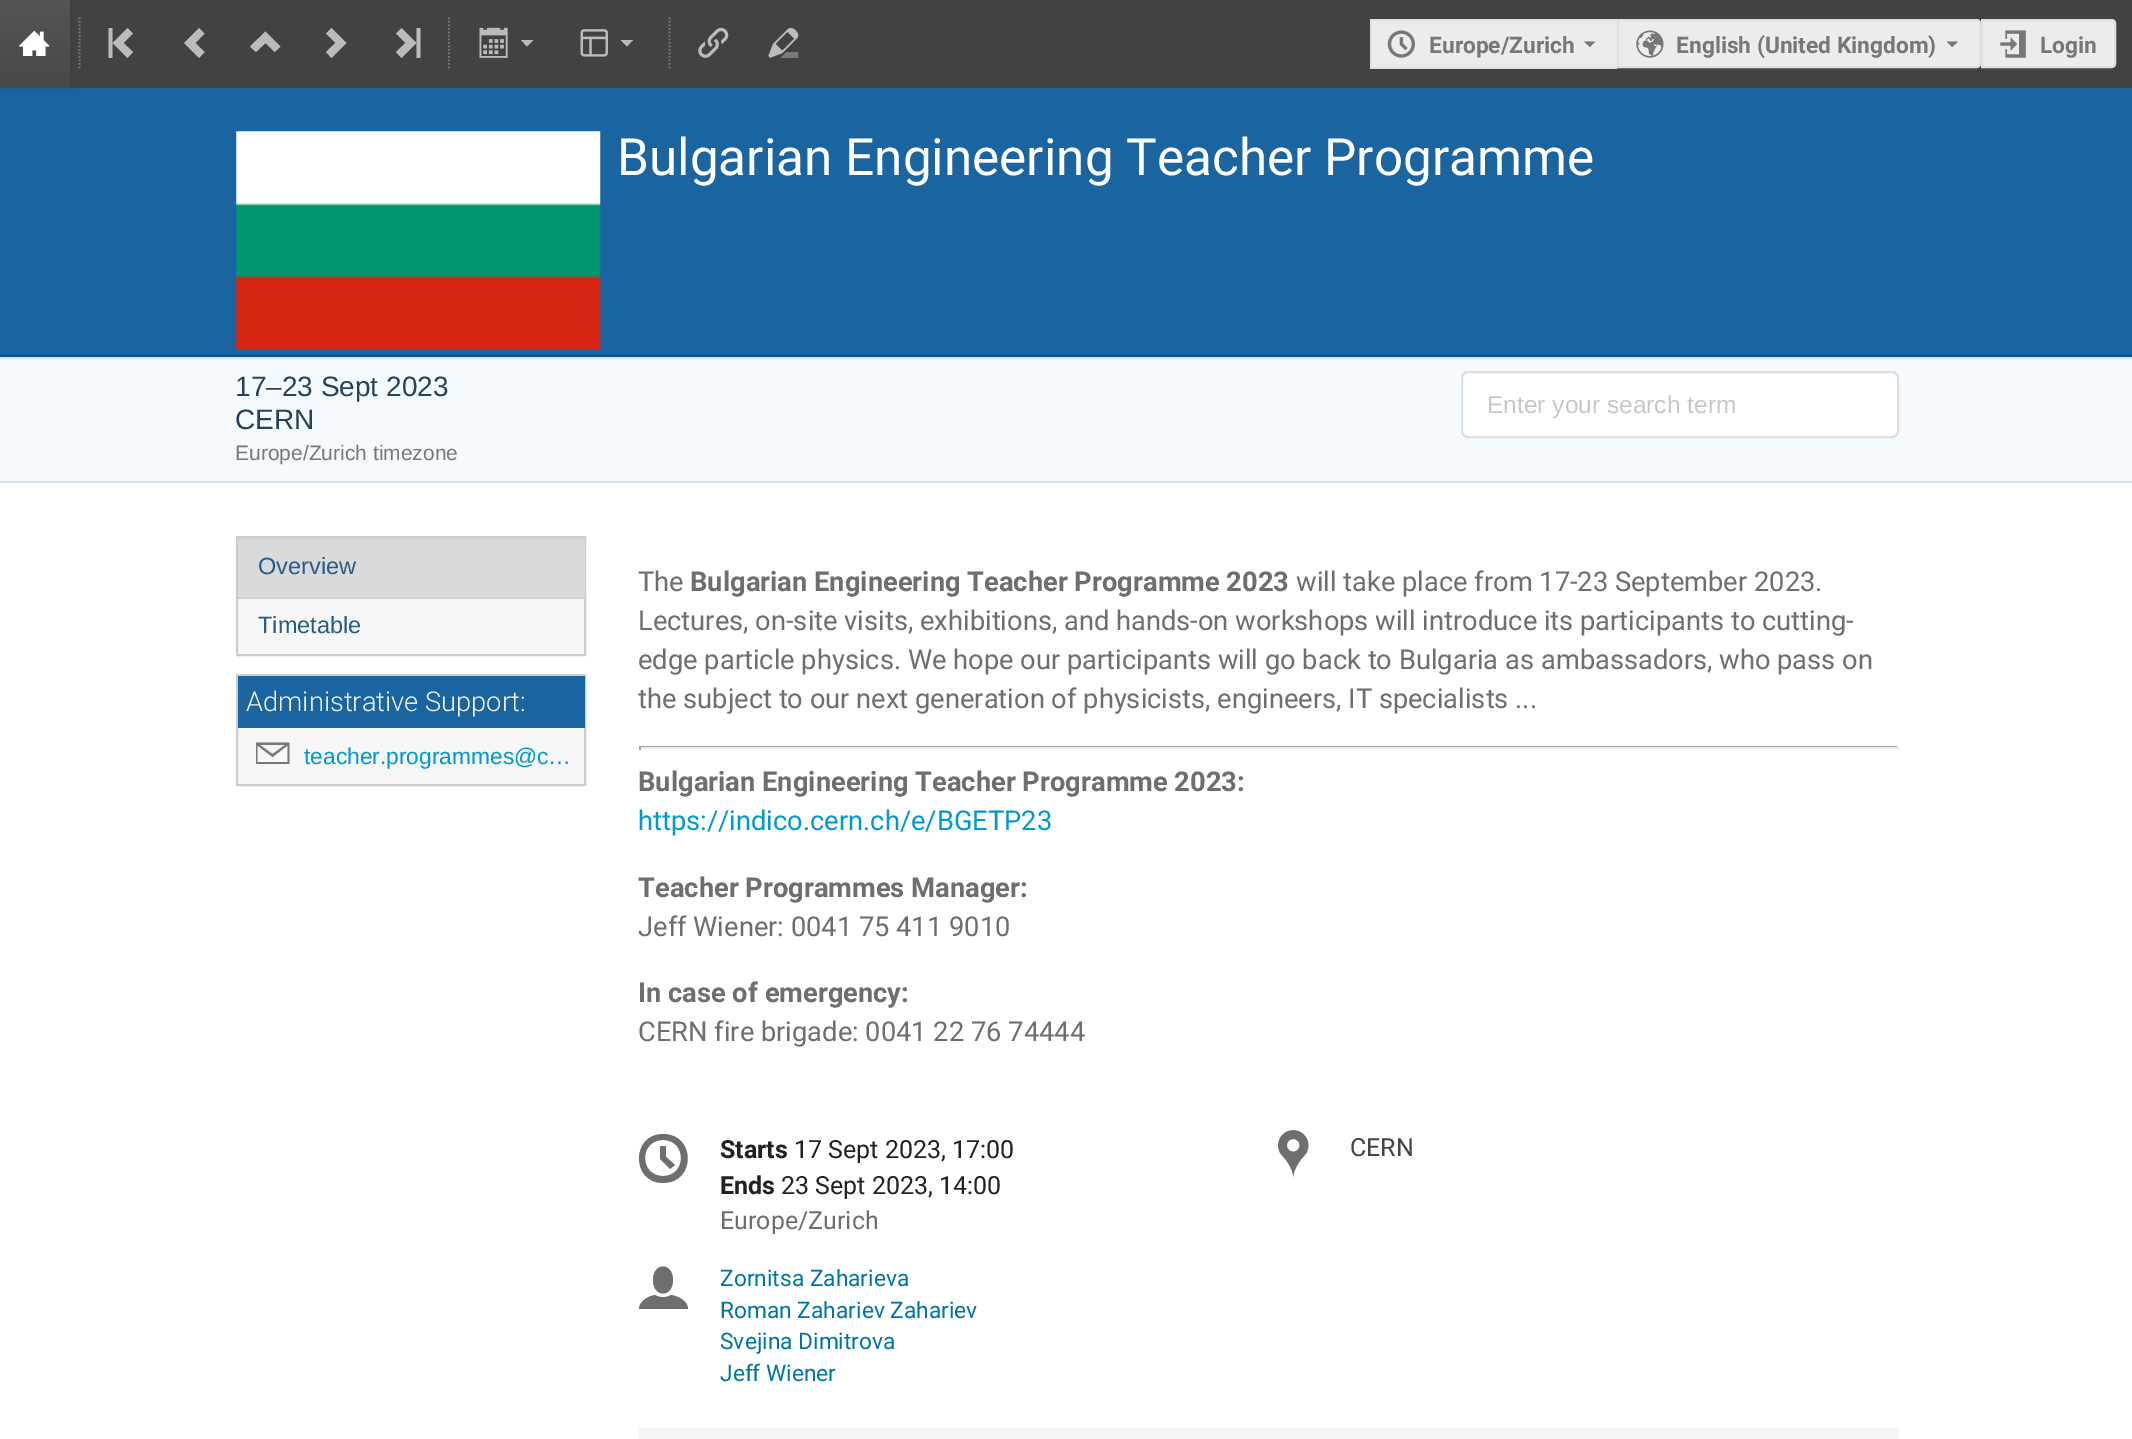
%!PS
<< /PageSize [2132 1439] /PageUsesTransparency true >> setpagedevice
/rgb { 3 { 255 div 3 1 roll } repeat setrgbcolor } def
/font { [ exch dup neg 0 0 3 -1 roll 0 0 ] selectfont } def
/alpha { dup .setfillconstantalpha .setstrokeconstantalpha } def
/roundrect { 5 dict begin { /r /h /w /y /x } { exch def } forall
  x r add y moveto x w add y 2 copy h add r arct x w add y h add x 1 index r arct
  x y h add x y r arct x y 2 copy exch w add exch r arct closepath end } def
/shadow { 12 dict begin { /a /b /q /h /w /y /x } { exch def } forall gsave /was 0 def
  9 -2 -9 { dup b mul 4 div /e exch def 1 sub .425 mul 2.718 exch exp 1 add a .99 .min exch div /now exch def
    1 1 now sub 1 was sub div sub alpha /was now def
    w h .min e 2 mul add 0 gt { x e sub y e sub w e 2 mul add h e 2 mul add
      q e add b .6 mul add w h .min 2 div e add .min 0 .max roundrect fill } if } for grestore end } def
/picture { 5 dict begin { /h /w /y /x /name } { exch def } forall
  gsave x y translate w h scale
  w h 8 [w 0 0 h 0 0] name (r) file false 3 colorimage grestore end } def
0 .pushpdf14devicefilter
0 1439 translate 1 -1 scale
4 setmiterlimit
255 255 255 rgb
0 0 2132 1439 rectfill
66 66 66 rgb
70 0 2062 88 rectfill
26 100 160 rgb
0 88 2132 267 rectfill
20 20 20 rgb
2 2 70 87 0 3.5 0.1 shadow
gsave 0 0 moveto 70 0 lineto 70 88 lineto 0 88 lineto closepath clip newpath
<< /ShadingType 2 /ColorSpace /DeviceRGB /Coords [35 0 35 88] /Extend [true true] /Function << /FunctionType 2 /Domain [0 1] /C0 [0.333 0.333 0.333] /C1 [0.282 0.282 0.282] /N 1 >> >> shfill grestore
(img/1.rgb) 19 30 31 26 picture
119 119 119 rgb
1.8 setlinewidth
[1.75 1.75] 0 setdash
79.5 17.5 moveto 79.5 70 lineto stroke
187 187 187 rgb
133 33.5 moveto 127.5 28 lineto 112.5 43 lineto 127.5 58 lineto 133 52 lineto 123.5 43 lineto closepath 108.5 28 moveto 108.5 58 lineto 112.5 58 lineto 112.5 28 lineto closepath fill
199 58 moveto 204.5 52 lineto 195.5 43 lineto 204.5 33.5 lineto 199 28 lineto 184 43 lineto closepath fill
250 46.5 moveto 256 52 lineto 265.5 43 lineto 274.5 52 lineto 280.5 46.5 lineto 265.5 31.5 lineto closepath fill
331.5 28 moveto 326 33.5 lineto 335.5 43 lineto 326 52 lineto 331.5 58 lineto 346.5 43 lineto closepath fill
396 52 moveto 401.5 58 lineto 416.5 43 lineto 401.5 28 lineto 396 33.5 lineto 405.5 43 lineto closepath 420.5 58 moveto 420.5 28 lineto 416.5 28 lineto 416.5 58 lineto closepath fill
119 119 119 rgb
449 17.5 moveto 449 70 lineto stroke
(img/2.rgb) 479 27 29 31 picture
187 187 187 rgb
521 40 moveto 527 46.5 lineto 533.5 40 lineto closepath fill
(img/3.rgb) 580 29 28 28 picture
620.5 40 moveto 627 46.5 lineto 633 40 lineto closepath fill
119 119 119 rgb
669.5 17.5 moveto 669.5 70 lineto stroke
(img/4.rgb) 698 27 31 31 picture
(img/5.rgb) 768 27 31 31 picture
[
  [1372 21 245 46 236 236 236]
  [1370 19 247 2 223 223 223]
  [1370 67 247 2 223 223 223]
  [1370 19 2 49 223 223 223]
] { aload pop rgb rectfill } forall
(img/6.rgb) 1387 30 28 28 picture
119 119 119 rgb
1584 41.5 moveto 1590 47 lineto 1595.5 41.5 lineto closepath fill
236 236 236 rgb
1618 20 moveto 1977 20 lineto 1978.5 20 1980 21.5 1980 23 curveto 1980 64 lineto 1980 65.5 1978.5 67 1977 67 curveto 1618 67 lineto closepath gsave fill grestore
223 223 223 rgb
2 setlinewidth
[] 0 setdash
stroke
(img/7.rgb) 1636 30 28 28 picture
119 119 119 rgb
1946.5 41.5 moveto 1952 47 lineto 1958 41.5 lineto closepath fill
236 236 236 rgb
1982 20 moveto 2112 20 lineto 2113.5 20 2115 21.5 2115 23 curveto 2115 64 lineto 2115 65.5 2113.5 67 2112 67 curveto 1982 67 lineto closepath gsave fill grestore
223 223 223 rgb
stroke
(img/8.rgb) 2000 30 26 28 picture
15 76 128 rgb
0 355 2132 2 rectfill
(img/9.rgb) 236 131 365 219 picture
[
  [0 359 2132 122 245 250 255]
  [0 357 2132 2 213 228 241]
  [0 481 2132 2 213 228 241]
] { aload pop rgb rectfill } forall
255 255 255 rgb
1461 371 438 67 7 roundrect fill
0.15 alpha
34 36 38 rgb
1462 372 436 65 6 roundrect stroke
1 alpha
246 246 246 rgb
238 599 346 55 rectfill
204 204 204 rgb
237 537 348 118 rectstroke
[
  [238 539 347 58 218 218 218]
  [238 537 347 2 208 208 208]
  [238 597 347 2 208 208 208]
  [238 728 346 56 246 246 246]
] { aload pop rgb rectfill } forall
204 204 204 rgb
237 675 348 110 rectstroke
26 100 160 rgb
238 676 347 52 rectfill
gsave
256 737 320 38 rectclip
119 119 119 rgb
255.5 742.5 moveto 255.5 764 lineto 289.5 764 lineto 289.5 742.5 lineto closepath 285 745 moveto 272.5 754 lineto 260 745 lineto closepath 257.5 762 moveto 257.5 745.5 lineto 272.5 757 lineto 287.5 745.5 lineto 287.5 762 lineto closepath fill
grestore
[
  [639 746 1260 1 159 159 159]
  [1897 746 2 4 238 238 238]
  [639 747 1260 2 238 238 238]
  [639 746 2 4 159 159 159]
] { aload pop rgb rectfill } forall
110 110 110 rgb
670 1169 moveto 660 1159 lineto 660 1146 lineto 666 1146 lineto 666 1157 lineto 675 1165 lineto closepath 663 1134 moveto 631 1134 631 1183 663 1183 curveto 696 1183 696 1134 663 1134 curveto closepath 663 1176 moveto 639 1176 639 1140 663 1140 curveto 687 1140 687 1176 663 1176 curveto closepath fill
(img/10.rgb) 1277 1130 32 49 picture
671 1295 moveto 666 1298 660 1298 655 1295 curveto 649 1296 639 1301 639 1309 curveto 688 1309 lineto 688 1301 678 1296 671 1295 curveto closepath 653 1280 moveto 653 1262 673 1262 673 1280 curveto 673 1298 653 1298 653 1280 curveto closepath fill
244 244 244 rgb
639 1428 1260 11 rectfill
/Roboto-Bold 22.75 font
119 119 119 rgb
[
  [(Europe/Zurich) 1429 53]
  [(English \(United Kingdom\)) 1676 53]
  [(Login) 2040 53]
] { aload pop moveto show } forall
/Roboto-Regular 51.3 font
255 255 255 rgb
617 175 moveto (Bulgarian Engineering Teacher Programme) show
/LiberationSans-Regular 28 font
36 66 90 rgb
235 396 moveto (17–23 Sept 2023) show
235 429 moveto (CERN) show
/LiberationSans-Regular 21 font
119 119 119 rgb
235 460 moveto (Europe/Zurich timezone) show
/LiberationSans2-Regular 24.5 font
199 199 199 rgb
1487 413 moveto (Enter your search term) show
/LiberationSans2-Regular 23.5 font
39 92 134 rgb
258 574 moveto (Overview) show
258 633 moveto (Timetable) show
/Roboto-Light 27.3 font
243 243 243 rgb
246 711 moveto (Administrative Support:) show
/LiberationSans-Regular 22.75 font
0 153 204 rgb
304 764 moveto (teacher.programmes@c…) show
/Roboto-Regular 27.3 font
110 110 110 rgb
638 591 moveto (The) show
/Roboto-Bold 27.3 font
690 591 moveto (Bulgarian Engineering Teacher Programme 2023) show
/Roboto-Regular 27.3 font
[
  [(will take place from 17-23 September 2023.) 1296 591]
  [(Lectures, on-site visits, exhibitions, and hands-on workshops will introduce its participants to cutting-) 638 630]
  [(edge particle physics. We hope our participants will go back to Bulgaria as ambassadors, who pass on) 638 669]
  [(the subject to our next generation of physicists, engineers, IT specialists ...) 638 708]
] { aload pop moveto show } forall
/Roboto-Bold 27.3 font
638 791 moveto (Bulgarian Engineering Teacher Programme 2023:) show
/Roboto-Regular 27.3 font
0 153 204 rgb
638 830 moveto (https://indico.cern.ch/e/BGETP23) show
/Roboto-Bold 27.3 font
110 110 110 rgb
638 897 moveto (Teacher Programmes Manager:) show
/Roboto-Regular 27.3 font
638 936 moveto (Jeff Wiener: 0041 75 411 9010) show
/Roboto-Bold 27.3 font
638 1002 moveto (In case of emergency:) show
/Roboto-Regular 27.3 font
638 1041 moveto (CERN fire brigade: 0041 22 76 74444) show
/Roboto-Bold 25 font
33 33 33 rgb
720 1158 moveto (Starts) show
/Roboto-Regular 25 font
794 1158 moveto (17 Sept 2023, 17:00) show
/Roboto-Bold 25 font
720 1194 moveto (Ends) show
/Roboto-Regular 25 font
781 1194 moveto (23 Sept 2023, 14:00) show
110 110 110 rgb
720 1229 moveto (Europe/Zurich) show
68 68 68 rgb
1350 1156 moveto (CERN) show
/Roboto-Regular 22.75 font
0 117 163 rgb
[
  [(Zornitsa Zaharieva) 720 1286]
  [(Roman Zahariev Zahariev) 720 1318]
  [(Svejina Dimitrova) 720 1349]
  [(Jeff Wiener) 720 1381]
] { aload pop moveto show } forall
.poppdf14devicefilter showpage
